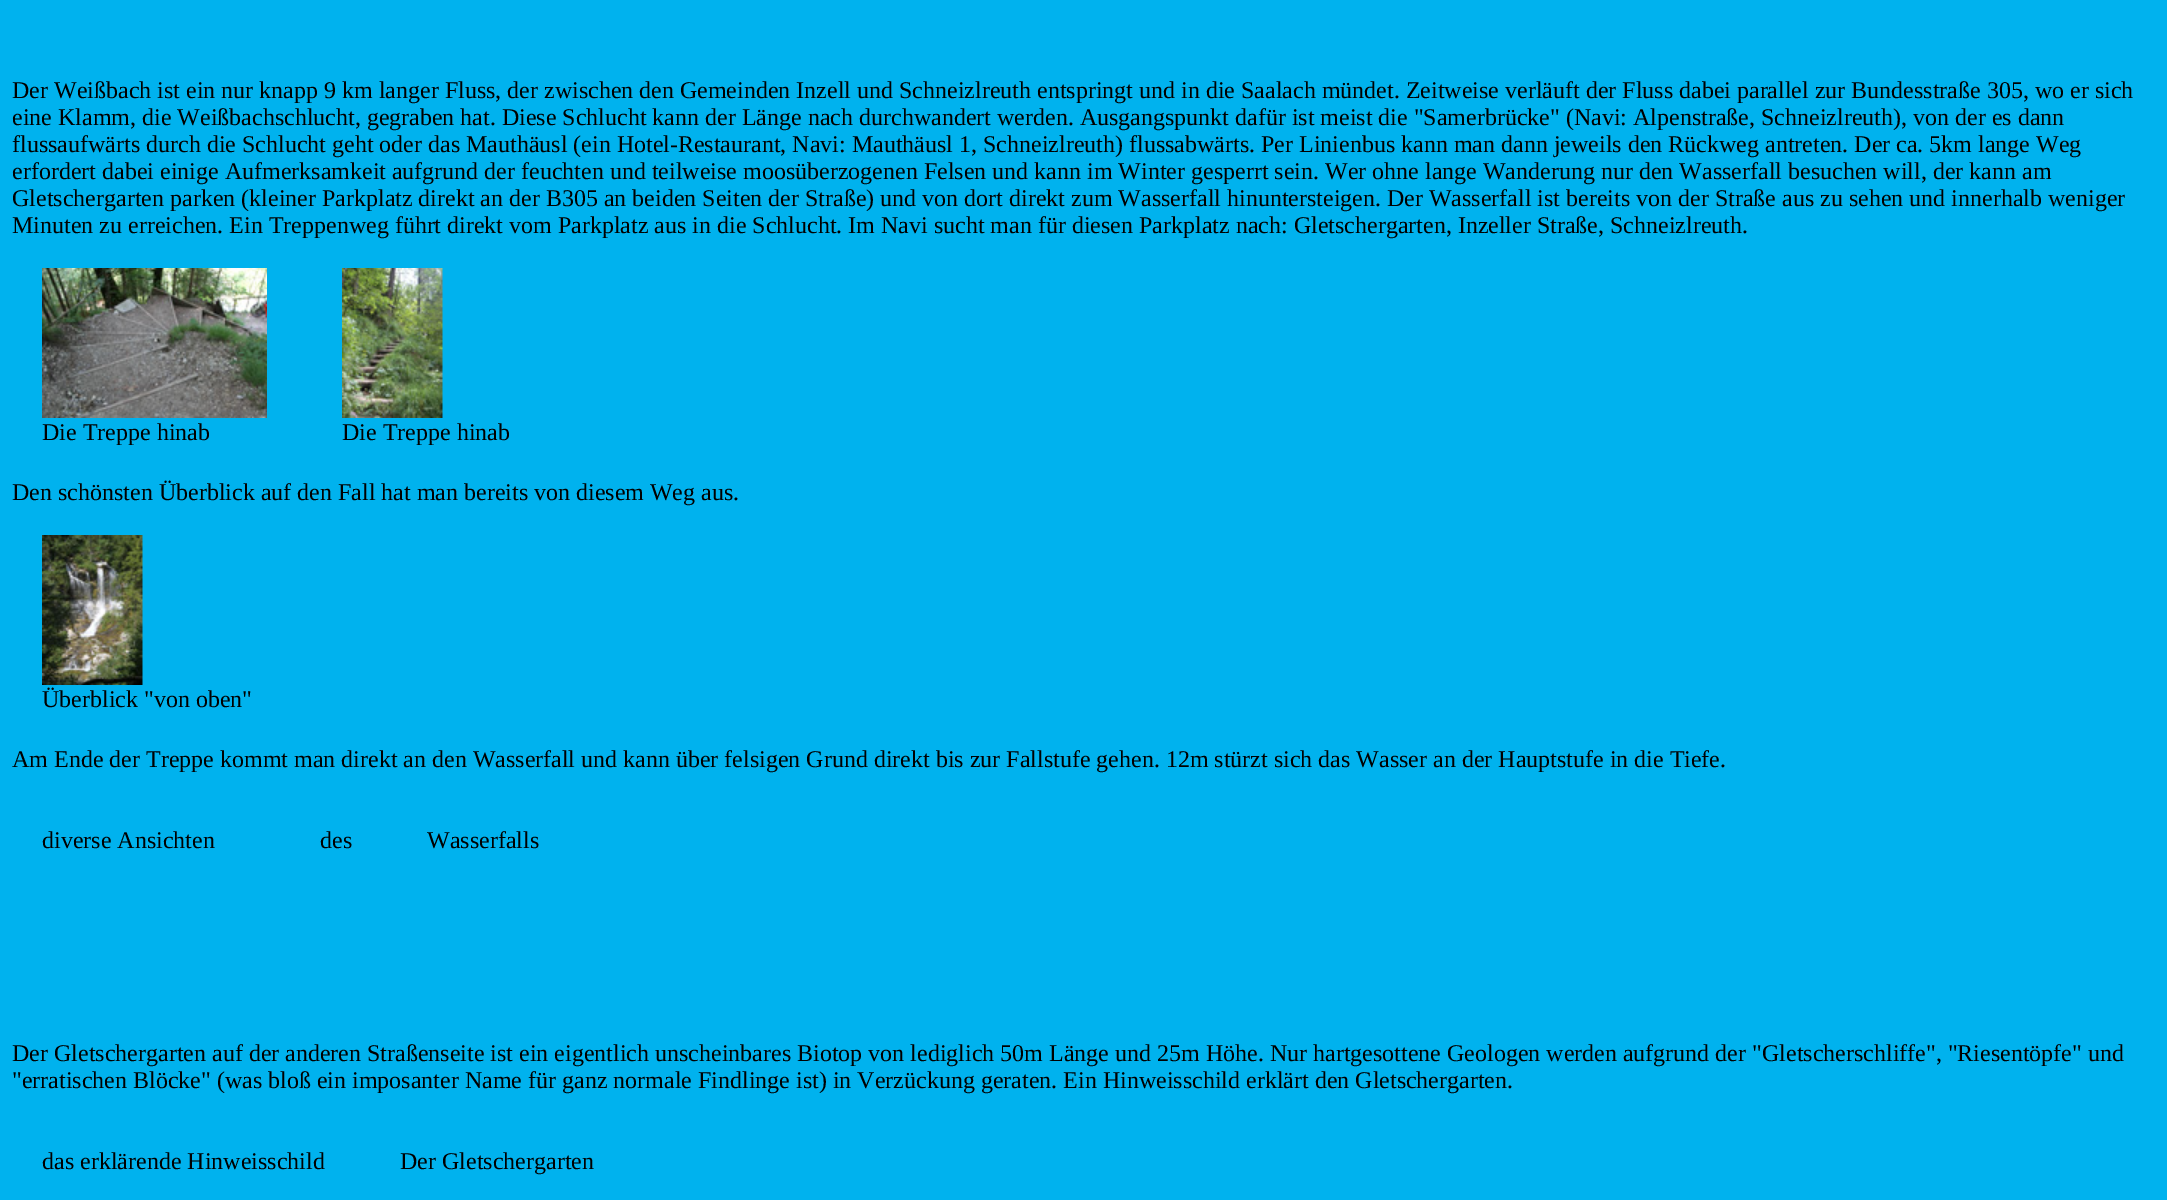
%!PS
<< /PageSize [2167 1200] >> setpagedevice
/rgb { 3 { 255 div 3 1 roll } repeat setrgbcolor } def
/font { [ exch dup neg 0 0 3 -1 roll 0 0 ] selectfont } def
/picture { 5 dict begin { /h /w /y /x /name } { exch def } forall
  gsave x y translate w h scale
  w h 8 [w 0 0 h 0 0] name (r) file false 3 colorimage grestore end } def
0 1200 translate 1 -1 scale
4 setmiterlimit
0 178 238 rgb
0 0 2167 1200 rectfill
(img/1.rgb) 42 268 225 150 picture
(img/2.rgb) 342 268 101 150 picture
(img/3.rgb) 42 535 101 150 picture
/LiberationSerif-Regular 24 font
0 0 0 rgb
[
  [(Der Weißbach ist ein nur knapp 9 km langer Fluss, der zwischen den Gemeinden Inzell und Schneizlreuth entspringt und in die Saalach mündet. Zeitweise verläuft der Fluss dabei parallel zur Bundesstraße 305, wo er sich) 12 98]
  [(eine Klamm, die Weißbachschlucht, gegraben hat. Diese Schlucht kann der Länge nach durchwandert werden. Ausgangspunkt dafür ist meist die "Samerbrücke" \(Navi: Alpenstraße, Schneizlreuth\), von der es dann) 12 125]
  [(flussaufwärts durch die Schlucht geht oder das Mauthäusl \(ein Hotel-Restaurant, Navi: Mauthäusl 1, Schneizlreuth\) flussabwärts. Per Linienbus kann man dann jeweils den Rückweg antreten. Der ca. 5km lange Weg) 12 152]
  [(erfordert dabei einige Aufmerksamkeit aufgrund der feuchten und teilweise moosüberzogenen Felsen und kann im Winter gesperrt sein. Wer ohne lange Wanderung nur den Wasserfall besuchen will, der kann am) 12 179]
  [(Gletschergarten parken \(kleiner Parkplatz direkt an der B305 an beiden Seiten der Straße\) und von dort direkt zum Wasserfall hinuntersteigen. Der Wasserfall ist bereits von der Straße aus zu sehen und innerhalb weniger) 12 206]
  [(Minuten zu erreichen. Ein Treppenweg führt direkt vom Parkplatz aus in die Schlucht. Im Navi sucht man für diesen Parkplatz nach: Gletschergarten, Inzeller Straße, Schneizlreuth.) 12 233]
  [(Die Treppe hinab) 42 440]
  [(Die Treppe hinab) 342 440]
  [(Den schönsten Überblick auf den Fall hat man bereits von diesem Weg aus.) 12 500]
  [(Überblick "von oben") 42 707]
  [(Am Ende der Treppe kommt man direkt an den Wasserfall und kann über felsigen Grund direkt bis zur Fallstufe gehen. 12m stürzt sich das Wasser an der Hauptstufe in die Tiefe.) 12 767]
  [(diverse Ansichten) 42 848]
  [(des) 320 848]
  [(Wasserfalls) 427 848]
  [(Der Gletschergarten auf der anderen Straßenseite ist ein eigentlich unscheinbares Biotop von lediglich 50m Länge und 25m Höhe. Nur hartgesottene Geologen werden aufgrund der "Gletscherschliffe", "Riesentöpfe" und) 12 1061]
  [("erratischen Blöcke" \(was bloß ein imposanter Name für ganz normale Findlinge ist\) in Verzückung geraten. Ein Hinweisschild erklärt den Gletschergarten.) 12 1088]
  [(das erklärende Hinweisschild) 42 1169]
  [(Der Gletschergarten) 400 1169]
] { aload pop moveto show } forall
showpage
